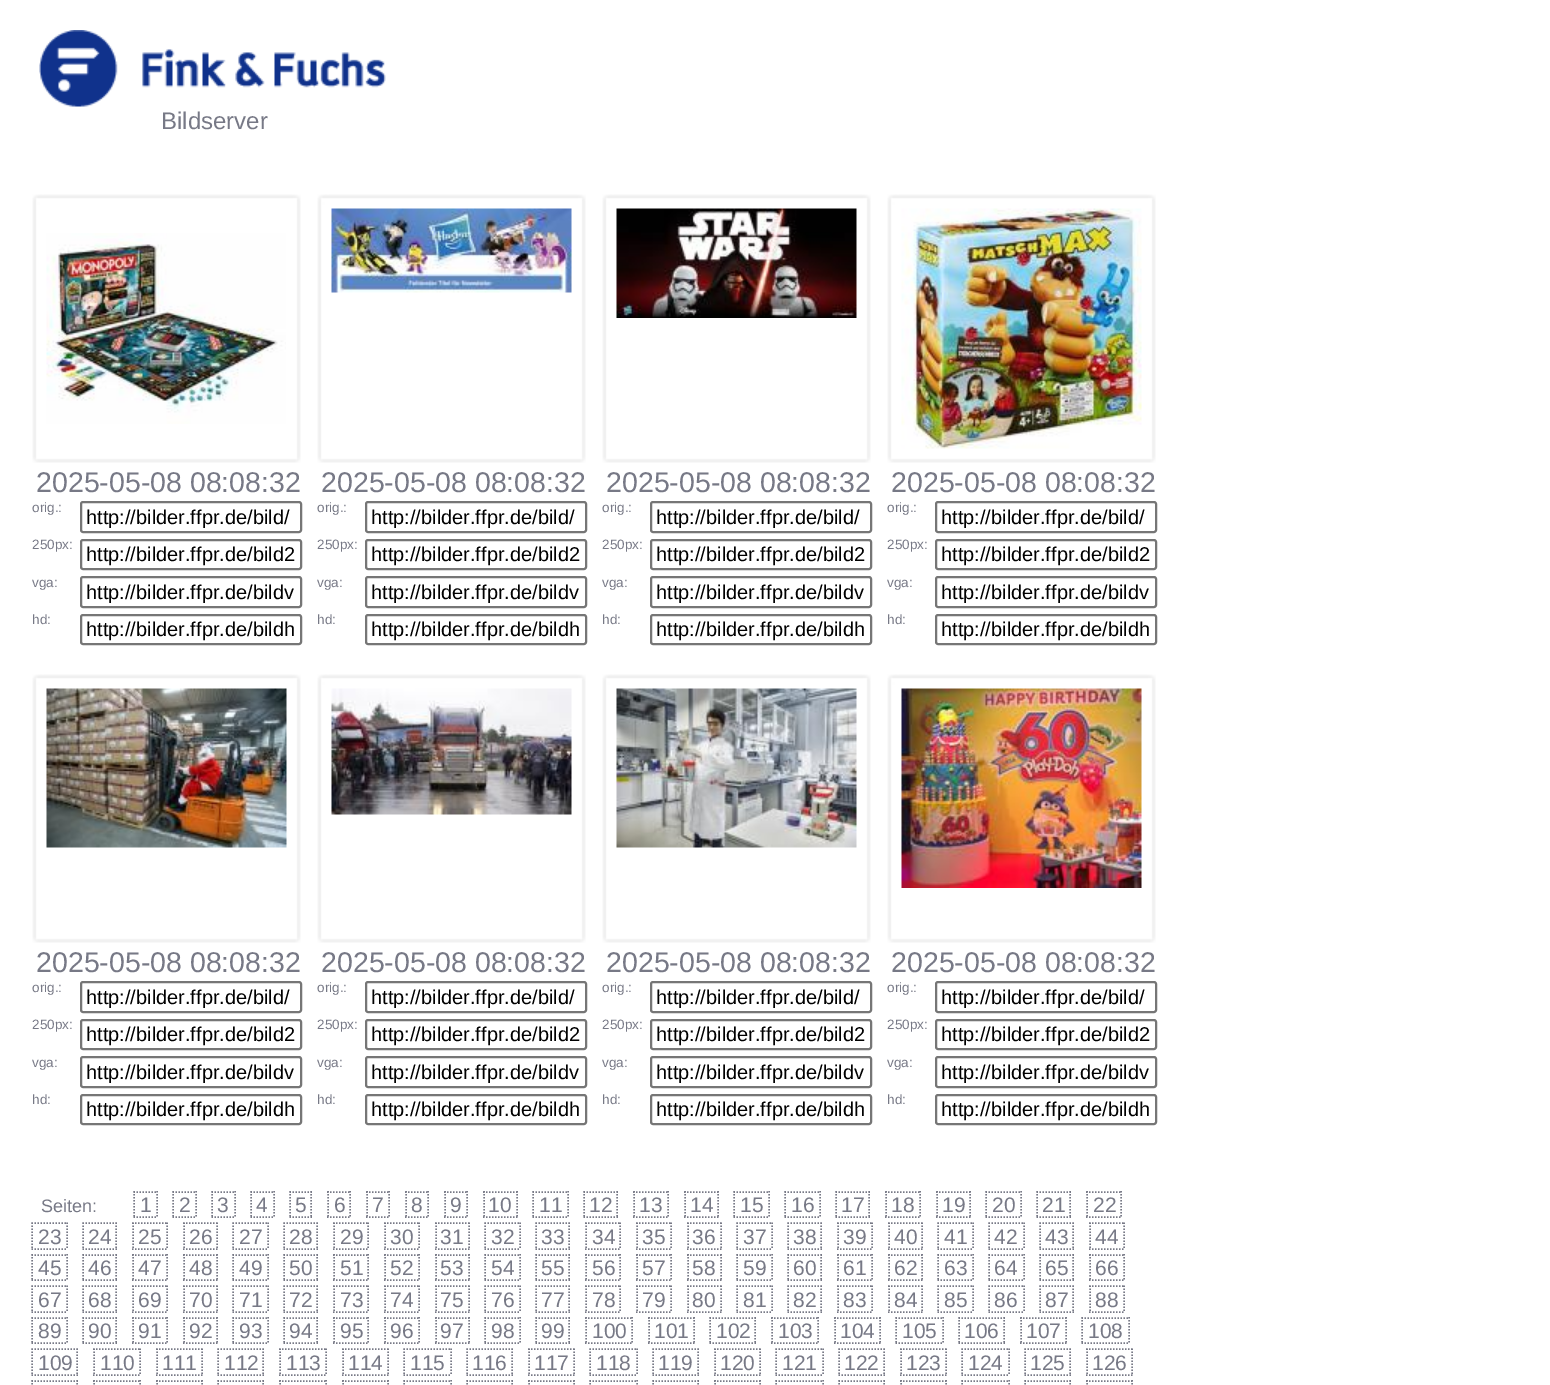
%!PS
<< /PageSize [1550 1385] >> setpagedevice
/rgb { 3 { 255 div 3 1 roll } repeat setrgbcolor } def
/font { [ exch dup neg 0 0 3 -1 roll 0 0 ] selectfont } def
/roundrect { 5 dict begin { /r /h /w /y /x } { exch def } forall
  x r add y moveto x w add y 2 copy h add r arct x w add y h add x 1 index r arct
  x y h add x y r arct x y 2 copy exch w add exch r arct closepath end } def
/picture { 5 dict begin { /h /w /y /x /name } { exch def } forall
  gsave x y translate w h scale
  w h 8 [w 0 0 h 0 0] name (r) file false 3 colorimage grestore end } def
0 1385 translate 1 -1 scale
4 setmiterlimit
255 255 255 rgb
0 0 1550 1385 rectfill
(img/1.rgb) 39 30 347 77 picture
(img/2.rgb) 32 194 269 269 picture
(img/3.rgb) 46 233 240 191 picture
118 118 118 rgb
2 setlinewidth
81 502 220 30 2 roundrect stroke
81 540 220 29 2 roundrect stroke
81 577 220 30 2 roundrect stroke
81 615 220 29 2 roundrect stroke
(img/2.rgb) 317 194 269 269 picture
(img/4.rgb) 331 208 241 85 picture
366 502 220 30 2 roundrect stroke
366 540 220 29 2 roundrect stroke
366 577 220 30 2 roundrect stroke
366 615 220 29 2 roundrect stroke
(img/5.rgb) 602 194 269 269 picture
(img/6.rgb) 616 208 241 110 picture
651 502 220 30 2 roundrect stroke
651 540 220 29 2 roundrect stroke
651 577 220 30 2 roundrect stroke
651 615 220 29 2 roundrect stroke
(img/2.rgb) 887 194 269 269 picture
(img/7.rgb) 901 208 241 241 picture
936 502 220 30 2 roundrect stroke
936 540 220 29 2 roundrect stroke
936 577 220 30 2 roundrect stroke
936 615 220 29 2 roundrect stroke
(img/2.rgb) 32 674 269 269 picture
(img/8.rgb) 46 688 241 160 picture
81 982 220 30 2 roundrect stroke
81 1020 220 29 2 roundrect stroke
81 1057 220 30 2 roundrect stroke
81 1095 220 29 2 roundrect stroke
(img/2.rgb) 317 674 269 269 picture
(img/9.rgb) 331 688 241 127 picture
366 982 220 30 2 roundrect stroke
366 1020 220 29 2 roundrect stroke
366 1057 220 30 2 roundrect stroke
366 1095 220 29 2 roundrect stroke
(img/5.rgb) 602 674 269 269 picture
(img/10.rgb) 616 688 241 160 picture
651 982 220 30 2 roundrect stroke
651 1020 220 29 2 roundrect stroke
651 1057 220 30 2 roundrect stroke
651 1095 220 29 2 roundrect stroke
(img/2.rgb) 887 674 269 269 picture
(img/11.rgb) 901 688 241 200 picture
936 982 220 30 2 roundrect stroke
936 1020 220 29 2 roundrect stroke
936 1057 220 30 2 roundrect stroke
936 1095 220 29 2 roundrect stroke
119 121 134 rgb
1.5 setlinewidth
[1.5 1.5] 0 setdash
133.5 1192 moveto 157.5 1192 lineto 157 1191 moveto 157 1218 lineto 133.5 1217 moveto 157.5 1217 lineto 134 1191 moveto 134 1218 lineto stroke
172.5 1192 moveto 196.5 1192 lineto 196 1191 moveto 196 1218 lineto 172.5 1217 moveto 196.5 1217 lineto 173 1191 moveto 173 1218 lineto stroke
211.5 1192 moveto 235.5 1192 lineto 235 1191 moveto 235 1218 lineto 211.5 1217 moveto 235.5 1217 lineto 212 1191 moveto 212 1218 lineto stroke
250.5 1192 moveto 274.5 1192 lineto 274 1191 moveto 274 1218 lineto 250.5 1217 moveto 274.5 1217 lineto 251 1191 moveto 251 1218 lineto stroke
289.5 1192 moveto 312 1192 lineto 311 1191 moveto 311 1218 lineto 289.5 1217 moveto 312 1217 lineto 290 1191 moveto 290 1218 lineto stroke
327 1192 moveto 351 1192 lineto 350 1191 moveto 350 1218 lineto 327 1217 moveto 351 1217 lineto 328 1191 moveto 328 1218 lineto stroke
366 1192 moveto 390 1192 lineto 389 1191 moveto 389 1218 lineto 366 1217 moveto 390 1217 lineto 367 1191 moveto 367 1218 lineto stroke
405 1192 moveto 429 1192 lineto 428 1191 moveto 428 1218 lineto 405 1217 moveto 429 1217 lineto 406 1191 moveto 406 1218 lineto stroke
444 1192 moveto 468 1192 lineto 467 1191 moveto 467 1218 lineto 444 1217 moveto 468 1217 lineto 445 1191 moveto 445 1218 lineto stroke
483 1192 moveto 517.5 1192 lineto 517 1191 moveto 517 1218 lineto 483 1217 moveto 517.5 1217 lineto 484 1191 moveto 484 1218 lineto stroke
532.5 1192 moveto 568.5 1192 lineto 568 1191 moveto 568 1218 lineto 532.5 1217 moveto 568.5 1217 lineto 533 1191 moveto 533 1218 lineto stroke
583.5 1192 moveto 618 1192 lineto 617 1191 moveto 617 1218 lineto 583.5 1217 moveto 618 1217 lineto 584 1191 moveto 584 1218 lineto stroke
633 1192 moveto 669 1192 lineto 668 1191 moveto 668 1218 lineto 633 1217 moveto 669 1217 lineto 634 1191 moveto 634 1218 lineto stroke
684 1192 moveto 718.5 1192 lineto 718 1191 moveto 718 1218 lineto 684 1217 moveto 718.5 1217 lineto 685 1191 moveto 685 1218 lineto stroke
733.5 1192 moveto 769.5 1192 lineto 769 1191 moveto 769 1218 lineto 733.5 1217 moveto 769.5 1217 lineto 734 1191 moveto 734 1218 lineto stroke
784.5 1192 moveto 820.5 1192 lineto 820 1191 moveto 820 1218 lineto 784.5 1217 moveto 820.5 1217 lineto 785 1191 moveto 785 1218 lineto stroke
835.5 1192 moveto 870 1192 lineto 869 1191 moveto 869 1218 lineto 835.5 1217 moveto 870 1217 lineto 836 1191 moveto 836 1218 lineto stroke
885 1192 moveto 921 1192 lineto 920 1191 moveto 920 1218 lineto 885 1217 moveto 921 1217 lineto 886 1191 moveto 886 1218 lineto stroke
936 1192 moveto 970.5 1192 lineto 970 1191 moveto 970 1218 lineto 936 1217 moveto 970.5 1217 lineto 937 1191 moveto 937 1218 lineto stroke
985.5 1192 moveto 1021.5 1192 lineto 1021 1191 moveto 1021 1218 lineto 985.5 1217 moveto 1021.5 1217 lineto 986 1191 moveto 986 1218 lineto stroke
1036.5 1192 moveto 1071 1192 lineto 1070 1191 moveto 1070 1218 lineto 1036.5 1217 moveto 1071 1217 lineto 1037 1191 moveto 1037 1218 lineto stroke
1086 1192 moveto 1122 1192 lineto 1121 1191 moveto 1121 1218 lineto 1086 1217 moveto 1122 1217 lineto 1087 1191 moveto 1087 1218 lineto stroke
31.5 1223 moveto 67.5 1223 lineto 67 1222.5 moveto 67 1249.5 lineto 31.5 1249 moveto 67.5 1249 lineto 32 1222.5 moveto 32 1249.5 lineto stroke
82.5 1223 moveto 117 1223 lineto 116 1222.5 moveto 116 1249.5 lineto 82.5 1249 moveto 117 1249 lineto 83 1222.5 moveto 83 1249.5 lineto stroke
132 1223 moveto 168 1223 lineto 167 1222.5 moveto 167 1249.5 lineto 132 1249 moveto 168 1249 lineto 133 1222.5 moveto 133 1249.5 lineto stroke
183 1223 moveto 217.5 1223 lineto 217 1222.5 moveto 217 1249.5 lineto 183 1249 moveto 217.5 1249 lineto 184 1222.5 moveto 184 1249.5 lineto stroke
232.5 1223 moveto 268.5 1223 lineto 268 1222.5 moveto 268 1249.5 lineto 232.5 1249 moveto 268.5 1249 lineto 233 1222.5 moveto 233 1249.5 lineto stroke
283.5 1223 moveto 318 1223 lineto 317 1222.5 moveto 317 1249.5 lineto 283.5 1249 moveto 318 1249 lineto 284 1222.5 moveto 284 1249.5 lineto stroke
333 1223 moveto 369 1223 lineto 368 1222.5 moveto 368 1249.5 lineto 333 1249 moveto 369 1249 lineto 334 1222.5 moveto 334 1249.5 lineto stroke
384 1223 moveto 420 1223 lineto 419 1222.5 moveto 419 1249.5 lineto 384 1249 moveto 420 1249 lineto 385 1222.5 moveto 385 1249.5 lineto stroke
435 1223 moveto 469.5 1223 lineto 469 1222.5 moveto 469 1249.5 lineto 435 1249 moveto 469.5 1249 lineto 436 1222.5 moveto 436 1249.5 lineto stroke
484.5 1223 moveto 520.5 1223 lineto 520 1222.5 moveto 520 1249.5 lineto 484.5 1249 moveto 520.5 1249 lineto 485 1222.5 moveto 485 1249.5 lineto stroke
535.5 1223 moveto 570 1223 lineto 569 1222.5 moveto 569 1249.5 lineto 535.5 1249 moveto 570 1249 lineto 536 1222.5 moveto 536 1249.5 lineto stroke
585 1223 moveto 621 1223 lineto 620 1222.5 moveto 620 1249.5 lineto 585 1249 moveto 621 1249 lineto 586 1222.5 moveto 586 1249.5 lineto stroke
636 1223 moveto 672 1223 lineto 671 1222.5 moveto 671 1249.5 lineto 636 1249 moveto 672 1249 lineto 637 1222.5 moveto 637 1249.5 lineto stroke
687 1223 moveto 721.5 1223 lineto 721 1222.5 moveto 721 1249.5 lineto 687 1249 moveto 721.5 1249 lineto 688 1222.5 moveto 688 1249.5 lineto stroke
736.5 1223 moveto 772.5 1223 lineto 772 1222.5 moveto 772 1249.5 lineto 736.5 1249 moveto 772.5 1249 lineto 737 1222.5 moveto 737 1249.5 lineto stroke
787.5 1223 moveto 822 1223 lineto 821 1222.5 moveto 821 1249.5 lineto 787.5 1249 moveto 822 1249 lineto 788 1222.5 moveto 788 1249.5 lineto stroke
837 1223 moveto 873 1223 lineto 872 1222.5 moveto 872 1249.5 lineto 837 1249 moveto 873 1249 lineto 838 1222.5 moveto 838 1249.5 lineto stroke
888 1223 moveto 922.5 1223 lineto 922 1222.5 moveto 922 1249.5 lineto 888 1249 moveto 922.5 1249 lineto 889 1222.5 moveto 889 1249.5 lineto stroke
937.5 1223 moveto 973.5 1223 lineto 973 1222.5 moveto 973 1249.5 lineto 937.5 1249 moveto 973.5 1249 lineto 938 1222.5 moveto 938 1249.5 lineto stroke
988.5 1223 moveto 1024.5 1223 lineto 1024 1222.5 moveto 1024 1249.5 lineto 988.5 1249 moveto 1024.5 1249 lineto 989 1222.5 moveto 989 1249.5 lineto stroke
1039.5 1223 moveto 1074 1223 lineto 1073 1222.5 moveto 1073 1249.5 lineto 1039.5 1249 moveto 1074 1249 lineto 1040 1222.5 moveto 1040 1249.5 lineto stroke
1089 1223 moveto 1125 1223 lineto 1124 1222.5 moveto 1124 1249.5 lineto 1089 1249 moveto 1125 1249 lineto 1090 1222.5 moveto 1090 1249.5 lineto stroke
31.5 1255 moveto 67.5 1255 lineto 67 1254 moveto 67 1281 lineto 31.5 1280 moveto 67.5 1280 lineto 32 1254 moveto 32 1281 lineto stroke
82.5 1255 moveto 117 1255 lineto 116 1254 moveto 116 1281 lineto 82.5 1280 moveto 117 1280 lineto 83 1254 moveto 83 1281 lineto stroke
132 1255 moveto 168 1255 lineto 167 1254 moveto 167 1281 lineto 132 1280 moveto 168 1280 lineto 133 1254 moveto 133 1281 lineto stroke
183 1255 moveto 217.5 1255 lineto 217 1254 moveto 217 1281 lineto 183 1280 moveto 217.5 1280 lineto 184 1254 moveto 184 1281 lineto stroke
232.5 1255 moveto 268.5 1255 lineto 268 1254 moveto 268 1281 lineto 232.5 1280 moveto 268.5 1280 lineto 233 1254 moveto 233 1281 lineto stroke
283.5 1255 moveto 318 1255 lineto 317 1254 moveto 317 1281 lineto 283.5 1280 moveto 318 1280 lineto 284 1254 moveto 284 1281 lineto stroke
333 1255 moveto 369 1255 lineto 368 1254 moveto 368 1281 lineto 333 1280 moveto 369 1280 lineto 334 1254 moveto 334 1281 lineto stroke
384 1255 moveto 420 1255 lineto 419 1254 moveto 419 1281 lineto 384 1280 moveto 420 1280 lineto 385 1254 moveto 385 1281 lineto stroke
435 1255 moveto 469.5 1255 lineto 469 1254 moveto 469 1281 lineto 435 1280 moveto 469.5 1280 lineto 436 1254 moveto 436 1281 lineto stroke
484.5 1255 moveto 520.5 1255 lineto 520 1254 moveto 520 1281 lineto 484.5 1280 moveto 520.5 1280 lineto 485 1254 moveto 485 1281 lineto stroke
535.5 1255 moveto 570 1255 lineto 569 1254 moveto 569 1281 lineto 535.5 1280 moveto 570 1280 lineto 536 1254 moveto 536 1281 lineto stroke
585 1255 moveto 621 1255 lineto 620 1254 moveto 620 1281 lineto 585 1280 moveto 621 1280 lineto 586 1254 moveto 586 1281 lineto stroke
636 1255 moveto 672 1255 lineto 671 1254 moveto 671 1281 lineto 636 1280 moveto 672 1280 lineto 637 1254 moveto 637 1281 lineto stroke
687 1255 moveto 721.5 1255 lineto 721 1254 moveto 721 1281 lineto 687 1280 moveto 721.5 1280 lineto 688 1254 moveto 688 1281 lineto stroke
736.5 1255 moveto 772.5 1255 lineto 772 1254 moveto 772 1281 lineto 736.5 1280 moveto 772.5 1280 lineto 737 1254 moveto 737 1281 lineto stroke
787.5 1255 moveto 822 1255 lineto 821 1254 moveto 821 1281 lineto 787.5 1280 moveto 822 1280 lineto 788 1254 moveto 788 1281 lineto stroke
837 1255 moveto 873 1255 lineto 872 1254 moveto 872 1281 lineto 837 1280 moveto 873 1280 lineto 838 1254 moveto 838 1281 lineto stroke
888 1255 moveto 922.5 1255 lineto 922 1254 moveto 922 1281 lineto 888 1280 moveto 922.5 1280 lineto 889 1254 moveto 889 1281 lineto stroke
937.5 1255 moveto 973.5 1255 lineto 973 1254 moveto 973 1281 lineto 937.5 1280 moveto 973.5 1280 lineto 938 1254 moveto 938 1281 lineto stroke
988.5 1255 moveto 1024.5 1255 lineto 1024 1254 moveto 1024 1281 lineto 988.5 1280 moveto 1024.5 1280 lineto 989 1254 moveto 989 1281 lineto stroke
1039.5 1255 moveto 1074 1255 lineto 1073 1254 moveto 1073 1281 lineto 1039.5 1280 moveto 1074 1280 lineto 1040 1254 moveto 1040 1281 lineto stroke
1089 1255 moveto 1125 1255 lineto 1124 1254 moveto 1124 1281 lineto 1089 1280 moveto 1125 1280 lineto 1090 1254 moveto 1090 1281 lineto stroke
31.5 1286 moveto 67.5 1286 lineto 67 1285.5 moveto 67 1312.5 lineto 31.5 1312 moveto 67.5 1312 lineto 32 1285.5 moveto 32 1312.5 lineto stroke
82.5 1286 moveto 117 1286 lineto 116 1285.5 moveto 116 1312.5 lineto 82.5 1312 moveto 117 1312 lineto 83 1285.5 moveto 83 1312.5 lineto stroke
132 1286 moveto 168 1286 lineto 167 1285.5 moveto 167 1312.5 lineto 132 1312 moveto 168 1312 lineto 133 1285.5 moveto 133 1312.5 lineto stroke
183 1286 moveto 217.5 1286 lineto 217 1285.5 moveto 217 1312.5 lineto 183 1312 moveto 217.5 1312 lineto 184 1285.5 moveto 184 1312.5 lineto stroke
232.5 1286 moveto 268.5 1286 lineto 268 1285.5 moveto 268 1312.5 lineto 232.5 1312 moveto 268.5 1312 lineto 233 1285.5 moveto 233 1312.5 lineto stroke
283.5 1286 moveto 318 1286 lineto 317 1285.5 moveto 317 1312.5 lineto 283.5 1312 moveto 318 1312 lineto 284 1285.5 moveto 284 1312.5 lineto stroke
333 1286 moveto 369 1286 lineto 368 1285.5 moveto 368 1312.5 lineto 333 1312 moveto 369 1312 lineto 334 1285.5 moveto 334 1312.5 lineto stroke
384 1286 moveto 420 1286 lineto 419 1285.5 moveto 419 1312.5 lineto 384 1312 moveto 420 1312 lineto 385 1285.5 moveto 385 1312.5 lineto stroke
435 1286 moveto 469.5 1286 lineto 469 1285.5 moveto 469 1312.5 lineto 435 1312 moveto 469.5 1312 lineto 436 1285.5 moveto 436 1312.5 lineto stroke
484.5 1286 moveto 520.5 1286 lineto 520 1285.5 moveto 520 1312.5 lineto 484.5 1312 moveto 520.5 1312 lineto 485 1285.5 moveto 485 1312.5 lineto stroke
535.5 1286 moveto 570 1286 lineto 569 1285.5 moveto 569 1312.5 lineto 535.5 1312 moveto 570 1312 lineto 536 1285.5 moveto 536 1312.5 lineto stroke
585 1286 moveto 621 1286 lineto 620 1285.5 moveto 620 1312.5 lineto 585 1312 moveto 621 1312 lineto 586 1285.5 moveto 586 1312.5 lineto stroke
636 1286 moveto 672 1286 lineto 671 1285.5 moveto 671 1312.5 lineto 636 1312 moveto 672 1312 lineto 637 1285.5 moveto 637 1312.5 lineto stroke
687 1286 moveto 721.5 1286 lineto 721 1285.5 moveto 721 1312.5 lineto 687 1312 moveto 721.5 1312 lineto 688 1285.5 moveto 688 1312.5 lineto stroke
736.5 1286 moveto 772.5 1286 lineto 772 1285.5 moveto 772 1312.5 lineto 736.5 1312 moveto 772.5 1312 lineto 737 1285.5 moveto 737 1312.5 lineto stroke
787.5 1286 moveto 822 1286 lineto 821 1285.5 moveto 821 1312.5 lineto 787.5 1312 moveto 822 1312 lineto 788 1285.5 moveto 788 1312.5 lineto stroke
837 1286 moveto 873 1286 lineto 872 1285.5 moveto 872 1312.5 lineto 837 1312 moveto 873 1312 lineto 838 1285.5 moveto 838 1312.5 lineto stroke
888 1286 moveto 922.5 1286 lineto 922 1285.5 moveto 922 1312.5 lineto 888 1312 moveto 922.5 1312 lineto 889 1285.5 moveto 889 1312.5 lineto stroke
937.5 1286 moveto 973.5 1286 lineto 973 1285.5 moveto 973 1312.5 lineto 937.5 1312 moveto 973.5 1312 lineto 938 1285.5 moveto 938 1312.5 lineto stroke
988.5 1286 moveto 1024.5 1286 lineto 1024 1285.5 moveto 1024 1312.5 lineto 988.5 1312 moveto 1024.5 1312 lineto 989 1285.5 moveto 989 1312.5 lineto stroke
1039.5 1286 moveto 1074 1286 lineto 1073 1285.5 moveto 1073 1312.5 lineto 1039.5 1312 moveto 1074 1312 lineto 1040 1285.5 moveto 1040 1312.5 lineto stroke
1089 1286 moveto 1125 1286 lineto 1124 1285.5 moveto 1124 1312.5 lineto 1089 1312 moveto 1125 1312 lineto 1090 1285.5 moveto 1090 1312.5 lineto stroke
31.5 1318 moveto 67.5 1318 lineto 67 1317 moveto 67 1344 lineto 31.5 1343 moveto 67.5 1343 lineto 32 1317 moveto 32 1344 lineto stroke
82.5 1318 moveto 117 1318 lineto 116 1317 moveto 116 1344 lineto 82.5 1343 moveto 117 1343 lineto 83 1317 moveto 83 1344 lineto stroke
132 1318 moveto 168 1318 lineto 167 1317 moveto 167 1344 lineto 132 1343 moveto 168 1343 lineto 133 1317 moveto 133 1344 lineto stroke
183 1318 moveto 217.5 1318 lineto 217 1317 moveto 217 1344 lineto 183 1343 moveto 217.5 1343 lineto 184 1317 moveto 184 1344 lineto stroke
232.5 1318 moveto 268.5 1318 lineto 268 1317 moveto 268 1344 lineto 232.5 1343 moveto 268.5 1343 lineto 233 1317 moveto 233 1344 lineto stroke
283.5 1318 moveto 318 1318 lineto 317 1317 moveto 317 1344 lineto 283.5 1343 moveto 318 1343 lineto 284 1317 moveto 284 1344 lineto stroke
333 1318 moveto 369 1318 lineto 368 1317 moveto 368 1344 lineto 333 1343 moveto 369 1343 lineto 334 1317 moveto 334 1344 lineto stroke
384 1318 moveto 420 1318 lineto 419 1317 moveto 419 1344 lineto 384 1343 moveto 420 1343 lineto 385 1317 moveto 385 1344 lineto stroke
435 1318 moveto 469.5 1318 lineto 469 1317 moveto 469 1344 lineto 435 1343 moveto 469.5 1343 lineto 436 1317 moveto 436 1344 lineto stroke
484.5 1318 moveto 520.5 1318 lineto 520 1317 moveto 520 1344 lineto 484.5 1343 moveto 520.5 1343 lineto 485 1317 moveto 485 1344 lineto stroke
535.5 1318 moveto 570 1318 lineto 569 1317 moveto 569 1344 lineto 535.5 1343 moveto 570 1343 lineto 536 1317 moveto 536 1344 lineto stroke
585 1318 moveto 633 1318 lineto 632 1317 moveto 632 1344 lineto 585 1343 moveto 633 1343 lineto 586 1317 moveto 586 1344 lineto stroke
648 1318 moveto 694.5 1318 lineto 694 1317 moveto 694 1344 lineto 648 1343 moveto 694.5 1343 lineto 649 1317 moveto 649 1344 lineto stroke
709.5 1318 moveto 756 1318 lineto 755 1317 moveto 755 1344 lineto 709.5 1343 moveto 756 1343 lineto 710 1317 moveto 710 1344 lineto stroke
771 1318 moveto 819 1318 lineto 818 1317 moveto 818 1344 lineto 771 1343 moveto 819 1343 lineto 772 1317 moveto 772 1344 lineto stroke
834 1318 moveto 880.5 1318 lineto 880 1317 moveto 880 1344 lineto 834 1343 moveto 880.5 1343 lineto 835 1317 moveto 835 1344 lineto stroke
895.5 1318 moveto 943.5 1318 lineto 943 1317 moveto 943 1344 lineto 895.5 1343 moveto 943.5 1343 lineto 896 1317 moveto 896 1344 lineto stroke
958.5 1318 moveto 1005 1318 lineto 1004 1317 moveto 1004 1344 lineto 958.5 1343 moveto 1005 1343 lineto 959 1317 moveto 959 1344 lineto stroke
1020 1318 moveto 1066.5 1318 lineto 1066 1317 moveto 1066 1344 lineto 1020 1343 moveto 1066.5 1343 lineto 1021 1317 moveto 1021 1344 lineto stroke
1081.5 1318 moveto 1129.5 1318 lineto 1129 1317 moveto 1129 1344 lineto 1081.5 1343 moveto 1129.5 1343 lineto 1082 1317 moveto 1082 1344 lineto stroke
31.5 1349 moveto 78 1349 lineto 77 1348.5 moveto 77 1375.5 lineto 31.5 1375 moveto 78 1375 lineto 32 1348.5 moveto 32 1375.5 lineto stroke
93 1349 moveto 141 1349 lineto 140 1348.5 moveto 140 1375.5 lineto 93 1375 moveto 141 1375 lineto 94 1348.5 moveto 94 1375.5 lineto stroke
156 1349 moveto 202.5 1349 lineto 202 1348.5 moveto 202 1375.5 lineto 156 1375 moveto 202.5 1375 lineto 157 1348.5 moveto 157 1375.5 lineto stroke
217.5 1349 moveto 264 1349 lineto 263 1348.5 moveto 263 1375.5 lineto 217.5 1375 moveto 264 1375 lineto 218 1348.5 moveto 218 1375.5 lineto stroke
279 1349 moveto 327 1349 lineto 326 1348.5 moveto 326 1375.5 lineto 279 1375 moveto 327 1375 lineto 280 1348.5 moveto 280 1375.5 lineto stroke
342 1349 moveto 388.5 1349 lineto 388 1348.5 moveto 388 1375.5 lineto 342 1375 moveto 388.5 1375 lineto 343 1348.5 moveto 343 1375.5 lineto stroke
403.5 1349 moveto 451.5 1349 lineto 451 1348.5 moveto 451 1375.5 lineto 403.5 1375 moveto 451.5 1375 lineto 404 1348.5 moveto 404 1375.5 lineto stroke
466.5 1349 moveto 513 1349 lineto 512 1348.5 moveto 512 1375.5 lineto 466.5 1375 moveto 513 1375 lineto 467 1348.5 moveto 467 1375.5 lineto stroke
528 1349 moveto 574.5 1349 lineto 574 1348.5 moveto 574 1375.5 lineto 528 1375 moveto 574.5 1375 lineto 529 1348.5 moveto 529 1375.5 lineto stroke
589.5 1349 moveto 637.5 1349 lineto 637 1348.5 moveto 637 1375.5 lineto 589.5 1375 moveto 637.5 1375 lineto 590 1348.5 moveto 590 1375.5 lineto stroke
652.5 1349 moveto 699 1349 lineto 698 1348.5 moveto 698 1375.5 lineto 652.5 1375 moveto 699 1375 lineto 653 1348.5 moveto 653 1375.5 lineto stroke
714 1349 moveto 760.5 1349 lineto 760 1348.5 moveto 760 1375.5 lineto 714 1375 moveto 760.5 1375 lineto 715 1348.5 moveto 715 1375.5 lineto stroke
775.5 1349 moveto 823.5 1349 lineto 823 1348.5 moveto 823 1375.5 lineto 775.5 1375 moveto 823.5 1375 lineto 776 1348.5 moveto 776 1375.5 lineto stroke
838.5 1349 moveto 885 1349 lineto 884 1348.5 moveto 884 1375.5 lineto 838.5 1375 moveto 885 1375 lineto 839 1348.5 moveto 839 1375.5 lineto stroke
900 1349 moveto 946.5 1349 lineto 946 1348.5 moveto 946 1375.5 lineto 900 1375 moveto 946.5 1375 lineto 901 1348.5 moveto 901 1375.5 lineto stroke
961.5 1349 moveto 1009.5 1349 lineto 1009 1348.5 moveto 1009 1375.5 lineto 961.5 1375 moveto 1009.5 1375 lineto 962 1348.5 moveto 962 1375.5 lineto stroke
1024.5 1349 moveto 1071 1349 lineto 1070 1348.5 moveto 1070 1375.5 lineto 1024.5 1375 moveto 1071 1375 lineto 1025 1348.5 moveto 1025 1375.5 lineto stroke
1086 1349 moveto 1132.5 1349 lineto 1132 1348.5 moveto 1132 1375.5 lineto 1086 1375 moveto 1132.5 1375 lineto 1087 1348.5 moveto 1087 1375.5 lineto stroke
31.5 1381 moveto 78 1381 lineto 77 1380 moveto 77 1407 lineto 32 1380 moveto 32 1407 lineto stroke
93 1381 moveto 141 1381 lineto 140 1380 moveto 140 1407 lineto 94 1380 moveto 94 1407 lineto stroke
156 1381 moveto 202.5 1381 lineto 202 1380 moveto 202 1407 lineto 157 1380 moveto 157 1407 lineto stroke
217.5 1381 moveto 264 1381 lineto 263 1380 moveto 263 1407 lineto 218 1380 moveto 218 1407 lineto stroke
279 1381 moveto 327 1381 lineto 326 1380 moveto 326 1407 lineto 280 1380 moveto 280 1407 lineto stroke
342 1381 moveto 388.5 1381 lineto 388 1380 moveto 388 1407 lineto 343 1380 moveto 343 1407 lineto stroke
403.5 1381 moveto 451.5 1381 lineto 451 1380 moveto 451 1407 lineto 404 1380 moveto 404 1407 lineto stroke
466.5 1381 moveto 513 1381 lineto 512 1380 moveto 512 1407 lineto 467 1380 moveto 467 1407 lineto stroke
528 1381 moveto 574.5 1381 lineto 574 1380 moveto 574 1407 lineto 529 1380 moveto 529 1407 lineto stroke
589.5 1381 moveto 637.5 1381 lineto 637 1380 moveto 637 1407 lineto 590 1380 moveto 590 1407 lineto stroke
652.5 1381 moveto 699 1381 lineto 698 1380 moveto 698 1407 lineto 653 1380 moveto 653 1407 lineto stroke
714 1381 moveto 760.5 1381 lineto 760 1380 moveto 760 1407 lineto 715 1380 moveto 715 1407 lineto stroke
775.5 1381 moveto 823.5 1381 lineto 823 1380 moveto 823 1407 lineto 776 1380 moveto 776 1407 lineto stroke
838.5 1381 moveto 885 1381 lineto 884 1380 moveto 884 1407 lineto 839 1380 moveto 839 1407 lineto stroke
900 1381 moveto 946.5 1381 lineto 946 1380 moveto 946 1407 lineto 901 1380 moveto 901 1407 lineto stroke
961.5 1381 moveto 1009.5 1381 lineto 1009 1380 moveto 1009 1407 lineto 962 1380 moveto 962 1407 lineto stroke
1024.5 1381 moveto 1071 1381 lineto 1070 1380 moveto 1070 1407 lineto 1025 1380 moveto 1025 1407 lineto stroke
1086 1381 moveto 1132.5 1381 lineto 1132 1380 moveto 1132 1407 lineto 1087 1380 moveto 1087 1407 lineto stroke
/LiberationSans-Regular 24 font
161 129 moveto (Bildserver) show
/LiberationSans-Regular 28.5 font
36 492 moveto (2025-05-08 08:08:32) show
/LiberationSans-Regular 13.5 font
32 512 moveto (orig.:) show
gsave
86 506 210 22 rectclip
/LiberationSans-Regular 20 font
0 0 0 rgb
86 524 moveto (http://bilder.ffpr.de/bild/) show
grestore
32 549 moveto (250px:) show
/LiberationSans-Regular 20 font
0 0 0 rgb
86 561 moveto (http://bilder.ffpr.de/bild2) show
/LiberationSans-Regular 13.5 font
119 121 134 rgb
32 587 moveto (vga:) show
gsave
86 581 210 22 rectclip
/LiberationSans-Regular 20 font
0 0 0 rgb
86 599 moveto (http://bilder.ffpr.de/bildv) show
grestore
32 624 moveto (hd:) show
/LiberationSans-Regular 20 font
0 0 0 rgb
86 636 moveto (http://bilder.ffpr.de/bildh) show
/LiberationSans-Regular 28.5 font
119 121 134 rgb
321 492 moveto (2025-05-08 08:08:32) show
/LiberationSans-Regular 13.5 font
317 512 moveto (orig.:) show
gsave
371 506 210 22 rectclip
/LiberationSans-Regular 20 font
0 0 0 rgb
371 524 moveto (http://bilder.ffpr.de/bild/) show
grestore
317 549 moveto (250px:) show
/LiberationSans-Regular 20 font
0 0 0 rgb
371 561 moveto (http://bilder.ffpr.de/bild2) show
/LiberationSans-Regular 13.5 font
119 121 134 rgb
317 587 moveto (vga:) show
gsave
371 581 210 22 rectclip
/LiberationSans-Regular 20 font
0 0 0 rgb
371 599 moveto (http://bilder.ffpr.de/bildv) show
grestore
317 624 moveto (hd:) show
/LiberationSans-Regular 20 font
0 0 0 rgb
371 636 moveto (http://bilder.ffpr.de/bildh) show
/LiberationSans-Regular 28.5 font
119 121 134 rgb
606 492 moveto (2025-05-08 08:08:32) show
/LiberationSans-Regular 13.5 font
602 512 moveto (orig.:) show
gsave
656 506 210 22 rectclip
/LiberationSans-Regular 20 font
0 0 0 rgb
656 524 moveto (http://bilder.ffpr.de/bild/) show
grestore
602 549 moveto (250px:) show
/LiberationSans-Regular 20 font
0 0 0 rgb
656 561 moveto (http://bilder.ffpr.de/bild2) show
/LiberationSans-Regular 13.5 font
119 121 134 rgb
602 587 moveto (vga:) show
gsave
656 581 210 22 rectclip
/LiberationSans-Regular 20 font
0 0 0 rgb
656 599 moveto (http://bilder.ffpr.de/bildv) show
grestore
602 624 moveto (hd:) show
/LiberationSans-Regular 20 font
0 0 0 rgb
656 636 moveto (http://bilder.ffpr.de/bildh) show
/LiberationSans-Regular 28.5 font
119 121 134 rgb
891 492 moveto (2025-05-08 08:08:32) show
/LiberationSans-Regular 13.5 font
887 512 moveto (orig.:) show
gsave
941 506 210 22 rectclip
/LiberationSans-Regular 20 font
0 0 0 rgb
941 524 moveto (http://bilder.ffpr.de/bild/) show
grestore
887 549 moveto (250px:) show
/LiberationSans-Regular 20 font
0 0 0 rgb
941 561 moveto (http://bilder.ffpr.de/bild2) show
/LiberationSans-Regular 13.5 font
119 121 134 rgb
887 587 moveto (vga:) show
gsave
941 581 210 22 rectclip
/LiberationSans-Regular 20 font
0 0 0 rgb
941 599 moveto (http://bilder.ffpr.de/bildv) show
grestore
887 624 moveto (hd:) show
/LiberationSans-Regular 20 font
0 0 0 rgb
941 636 moveto (http://bilder.ffpr.de/bildh) show
/LiberationSans-Regular 28.5 font
119 121 134 rgb
36 972 moveto (2025-05-08 08:08:32) show
/LiberationSans-Regular 13.5 font
32 992 moveto (orig.:) show
gsave
86 986 210 22 rectclip
/LiberationSans-Regular 20 font
0 0 0 rgb
86 1004 moveto (http://bilder.ffpr.de/bild/) show
grestore
32 1029 moveto (250px:) show
/LiberationSans-Regular 20 font
0 0 0 rgb
86 1041 moveto (http://bilder.ffpr.de/bild2) show
/LiberationSans-Regular 13.5 font
119 121 134 rgb
32 1067 moveto (vga:) show
gsave
86 1061 210 22 rectclip
/LiberationSans-Regular 20 font
0 0 0 rgb
86 1079 moveto (http://bilder.ffpr.de/bildv) show
grestore
32 1104 moveto (hd:) show
/LiberationSans-Regular 20 font
0 0 0 rgb
86 1116 moveto (http://bilder.ffpr.de/bildh) show
/LiberationSans-Regular 28.5 font
119 121 134 rgb
321 972 moveto (2025-05-08 08:08:32) show
/LiberationSans-Regular 13.5 font
317 992 moveto (orig.:) show
gsave
371 986 210 22 rectclip
/LiberationSans-Regular 20 font
0 0 0 rgb
371 1004 moveto (http://bilder.ffpr.de/bild/) show
grestore
317 1029 moveto (250px:) show
/LiberationSans-Regular 20 font
0 0 0 rgb
371 1041 moveto (http://bilder.ffpr.de/bild2) show
/LiberationSans-Regular 13.5 font
119 121 134 rgb
317 1067 moveto (vga:) show
gsave
371 1061 210 22 rectclip
/LiberationSans-Regular 20 font
0 0 0 rgb
371 1079 moveto (http://bilder.ffpr.de/bildv) show
grestore
317 1104 moveto (hd:) show
/LiberationSans-Regular 20 font
0 0 0 rgb
371 1116 moveto (http://bilder.ffpr.de/bildh) show
/LiberationSans-Regular 28.5 font
119 121 134 rgb
606 972 moveto (2025-05-08 08:08:32) show
/LiberationSans-Regular 13.5 font
602 992 moveto (orig.:) show
gsave
656 986 210 22 rectclip
/LiberationSans-Regular 20 font
0 0 0 rgb
656 1004 moveto (http://bilder.ffpr.de/bild/) show
grestore
602 1029 moveto (250px:) show
/LiberationSans-Regular 20 font
0 0 0 rgb
656 1041 moveto (http://bilder.ffpr.de/bild2) show
/LiberationSans-Regular 13.5 font
119 121 134 rgb
602 1067 moveto (vga:) show
gsave
656 1061 210 22 rectclip
/LiberationSans-Regular 20 font
0 0 0 rgb
656 1079 moveto (http://bilder.ffpr.de/bildv) show
grestore
602 1104 moveto (hd:) show
/LiberationSans-Regular 20 font
0 0 0 rgb
656 1116 moveto (http://bilder.ffpr.de/bildh) show
/LiberationSans-Regular 28.5 font
119 121 134 rgb
891 972 moveto (2025-05-08 08:08:32) show
/LiberationSans-Regular 13.5 font
887 992 moveto (orig.:) show
gsave
941 986 210 22 rectclip
/LiberationSans-Regular 20 font
0 0 0 rgb
941 1004 moveto (http://bilder.ffpr.de/bild/) show
grestore
887 1029 moveto (250px:) show
/LiberationSans-Regular 20 font
0 0 0 rgb
941 1041 moveto (http://bilder.ffpr.de/bild2) show
/LiberationSans-Regular 13.5 font
119 121 134 rgb
887 1067 moveto (vga:) show
gsave
941 1061 210 22 rectclip
/LiberationSans-Regular 20 font
0 0 0 rgb
941 1079 moveto (http://bilder.ffpr.de/bildv) show
grestore
887 1104 moveto (hd:) show
/LiberationSans-Regular 20 font
0 0 0 rgb
941 1116 moveto (http://bilder.ffpr.de/bildh) show
/LiberationSans-Regular 18 font
119 121 134 rgb
41 1212 moveto (Seiten:) show
/LiberationSans-Regular 21 font
[
  [(1) 140 1212]
  [(2) 179 1212]
  [(3) 217 1212]
  [(4) 256 1212]
  [(5) 295 1212]
  [(6) 334 1212]
  [(7) 372 1212]
  [(8) 411 1212]
  [(9) 450 1212]
  [(10) 488 1212]
  [(11) 539 1212]
  [(12) 589 1212]
  [(13) 639 1212]
  [(14) 690 1212]
  [(15) 740 1212]
  [(16) 791 1212]
  [(17) 841 1212]
  [(18) 891 1212]
  [(19) 942 1212]
  [(20) 992 1212]
  [(21) 1042 1212]
  [(22) 1093 1212]
  [(23) 38 1244]
  [(24) 88 1244]
  [(25) 138 1244]
  [(26) 189 1244]
  [(27) 239 1244]
  [(28) 289 1244]
  [(29) 340 1244]
  [(30) 390 1244]
  [(31) 440 1244]
  [(32) 491 1244]
  [(33) 541 1244]
  [(34) 592 1244]
  [(35) 642 1244]
  [(36) 692 1244]
  [(37) 743 1244]
  [(38) 793 1244]
  [(39) 843 1244]
  [(40) 894 1244]
  [(41) 944 1244]
  [(42) 994 1244]
  [(43) 1045 1244]
  [(44) 1095 1244]
  [(45) 38 1275]
  [(46) 88 1275]
  [(47) 138 1275]
  [(48) 189 1275]
  [(49) 239 1275]
  [(50) 289 1275]
  [(51) 340 1275]
  [(52) 390 1275]
  [(53) 440 1275]
  [(54) 491 1275]
  [(55) 541 1275]
  [(56) 592 1275]
  [(57) 642 1275]
  [(58) 692 1275]
  [(59) 743 1275]
  [(60) 793 1275]
  [(61) 843 1275]
  [(62) 894 1275]
  [(63) 944 1275]
  [(64) 994 1275]
  [(65) 1045 1275]
  [(66) 1095 1275]
  [(67) 38 1307]
  [(68) 88 1307]
  [(69) 138 1307]
  [(70) 189 1307]
  [(71) 239 1307]
  [(72) 289 1307]
  [(73) 340 1307]
  [(74) 390 1307]
  [(75) 440 1307]
  [(76) 491 1307]
  [(77) 541 1307]
  [(78) 592 1307]
  [(79) 642 1307]
  [(80) 692 1307]
  [(81) 743 1307]
  [(82) 793 1307]
  [(83) 843 1307]
  [(84) 894 1307]
  [(85) 944 1307]
  [(86) 994 1307]
  [(87) 1045 1307]
  [(88) 1095 1307]
  [(89) 38 1338]
  [(90) 88 1338]
  [(91) 138 1338]
  [(92) 189 1338]
  [(93) 239 1338]
  [(94) 289 1338]
  [(95) 340 1338]
  [(96) 390 1338]
  [(97) 440 1338]
  [(98) 491 1338]
  [(99) 541 1338]
  [(100) 592 1338]
  [(101) 654 1338]
  [(102) 716 1338]
  [(103) 778 1338]
  [(104) 840 1338]
  [(105) 902 1338]
  [(106) 964 1338]
  [(107) 1026 1338]
  [(108) 1088 1338]
  [(109) 38 1370]
  [(110) 100 1370]
  [(111) 162 1370]
  [(112) 224 1370]
  [(113) 286 1370]
  [(114) 348 1370]
  [(115) 410 1370]
  [(116) 472 1370]
  [(117) 534 1370]
  [(118) 596 1370]
  [(119) 658 1370]
  [(120) 720 1370]
  [(121) 782 1370]
  [(122) 844 1370]
  [(123) 906 1370]
  [(124) 968 1370]
  [(125) 1030 1370]
  [(126) 1092 1370]
] { aload pop moveto show } forall
showpage
